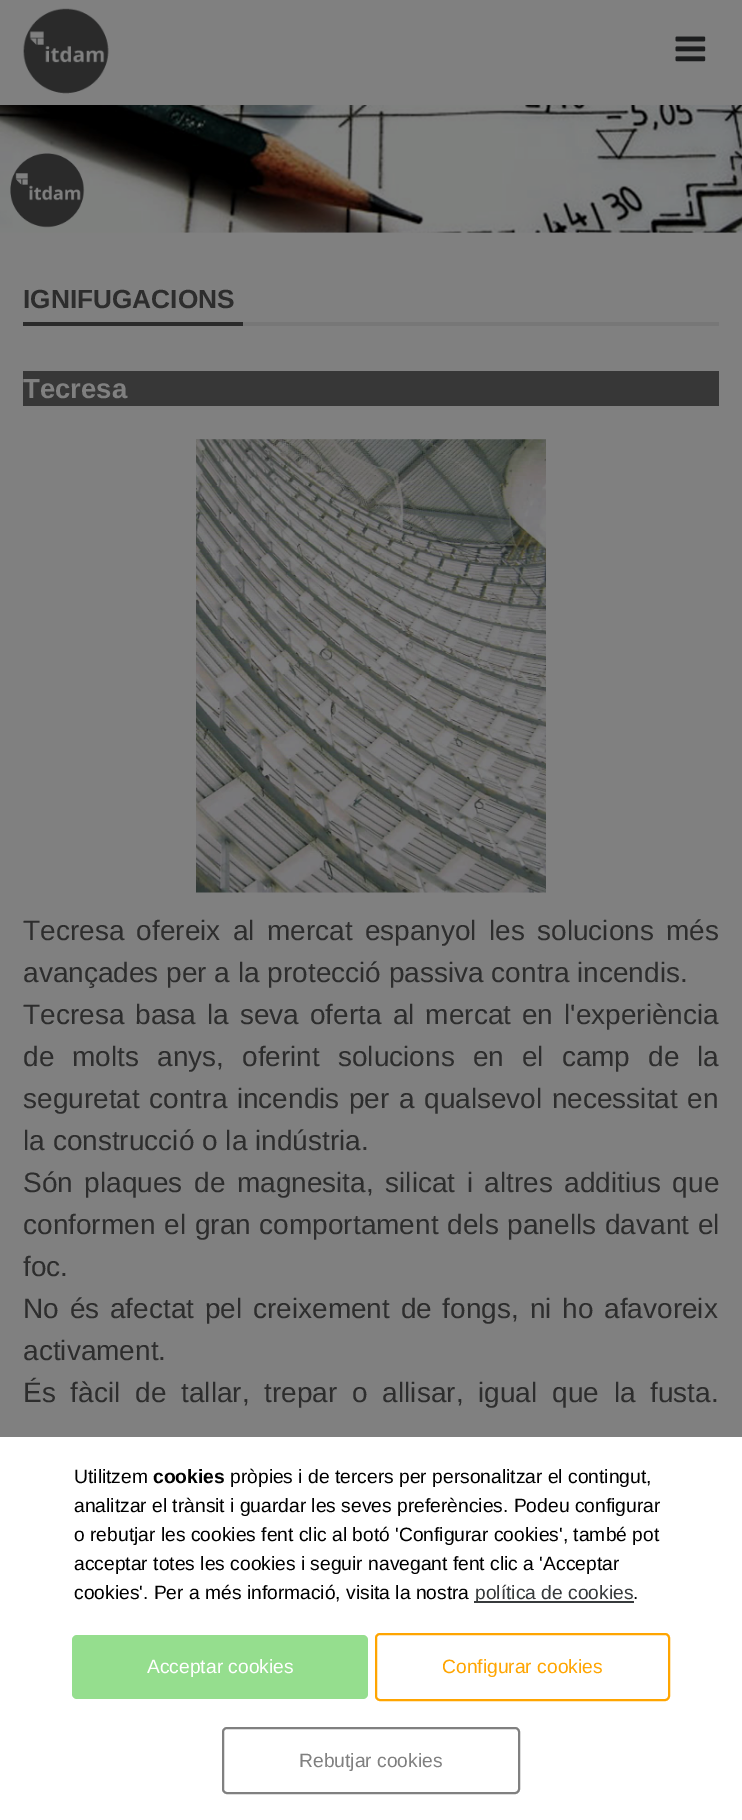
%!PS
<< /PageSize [742 1820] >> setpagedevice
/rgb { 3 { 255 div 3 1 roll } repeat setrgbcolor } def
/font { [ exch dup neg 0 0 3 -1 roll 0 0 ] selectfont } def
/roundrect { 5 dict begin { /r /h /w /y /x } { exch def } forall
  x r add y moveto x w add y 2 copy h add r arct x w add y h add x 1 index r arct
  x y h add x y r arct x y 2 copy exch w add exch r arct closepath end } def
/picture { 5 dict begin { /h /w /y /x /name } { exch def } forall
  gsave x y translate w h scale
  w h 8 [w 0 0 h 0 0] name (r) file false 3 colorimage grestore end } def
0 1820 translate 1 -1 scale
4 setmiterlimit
128 128 128 rgb
0 0 742 1820 rectfill
(img/1.rgb) 23 8 86 86 picture
(img/2.rgb) 675 36 31 26 picture
(img/3.rgb) 0 105 742 128 picture
[
  [243 322 476 4 119 119 119]
  [23 322 220 4 42 42 42]
  [23 371 696 35 55 55 55]
] { aload pop rgb rectfill } forall
(img/4.rgb) 196 439 350 454 picture
255 255 255 rgb
0 1437 742 383 rectfill
55 58 60 rgb
474 1601 160 2 rectfill
149 222 142 rgb
72 1635 296 64 5 roundrect fill
255 165 0 rgb
2 setlinewidth
376 1634 293 66 4 roundrect stroke
128 128 128 rgb
223 1728 296 65 4 roundrect stroke
/LiberationSans-Bold 26.25 font
45 45 45 rgb
23 308 moveto (IGNIFUGACIONS) show
/LiberationSans-Bold 27.5 font
128 128 128 rgb
23 398 moveto (Tecresa) show
/LiberationSans-Regular 28 font
45 45 45 rgb
23 940 moveto 4.5 0 32 (Tecresa ofereix al mercat espanyol les solucions més) widthshow
23 982 moveto (avançades per a la protecció passiva contra incendis.) show
23 1024 moveto 3.25 0 32 (Tecresa basa la seva oferta al mercat en l'experiència) widthshow
23 1066 moveto 10.25 0 32 (de molts anys, oferint solucions en el camp de la) widthshow
23 1108 moveto 1.75 0 32 (seguretat contra incendis per a qualsevol necessitat en) widthshow
23 1150 moveto (la construcció o la indústria.) show
23 1192 moveto 3.75 0 32 (Són plaques de magnesita, silicat i altres additius que) widthshow
23 1234 moveto 1 0 32 (conformen el gran comportament dels panells davant el) widthshow
23 1276 moveto (foc.) show
23 1318 moveto 3 0 32 (No és afectat pel creixement de fongs, ni ho afavoreix) widthshow
23 1360 moveto (activament.) show
23 1402 moveto 7 0 32 (És fàcil de tallar, trepar o allisar, igual que la fusta.) widthshow
/LiberationSans-Regular 19.25 font
0 0 0 rgb
74 1483 moveto (Utilitzem) show
/LiberationSans-Bold 19.25 font
153 1483 moveto (cookies) show
/LiberationSans-Regular 19.25 font
[
  [(pròpies i de tercers per personalitzar el contingut,) 230 1483]
  [(analitzar el trànsit i guardar les seves preferències. Podeu configurar) 74 1512]
  [(o rebutjar les cookies fent clic al botó 'Configurar cookies', també pot) 74 1541]
  [(acceptar totes les cookies i seguir navegant fent clic a 'Acceptar) 74 1570]
  [(cookies'. Per a més informació, visita la nostra) 74 1599]
] { aload pop moveto show } forall
55 58 60 rgb
475 1599 moveto (política de cookies) show
0 0 0 rgb
633 1599 moveto (.) show
255 255 255 rgb
147 1673 moveto (Acceptar cookies) show
255 165 0 rgb
442 1673 moveto (Configurar cookies) show
128 128 128 rgb
299 1767 moveto (Rebutjar cookies) show
showpage
